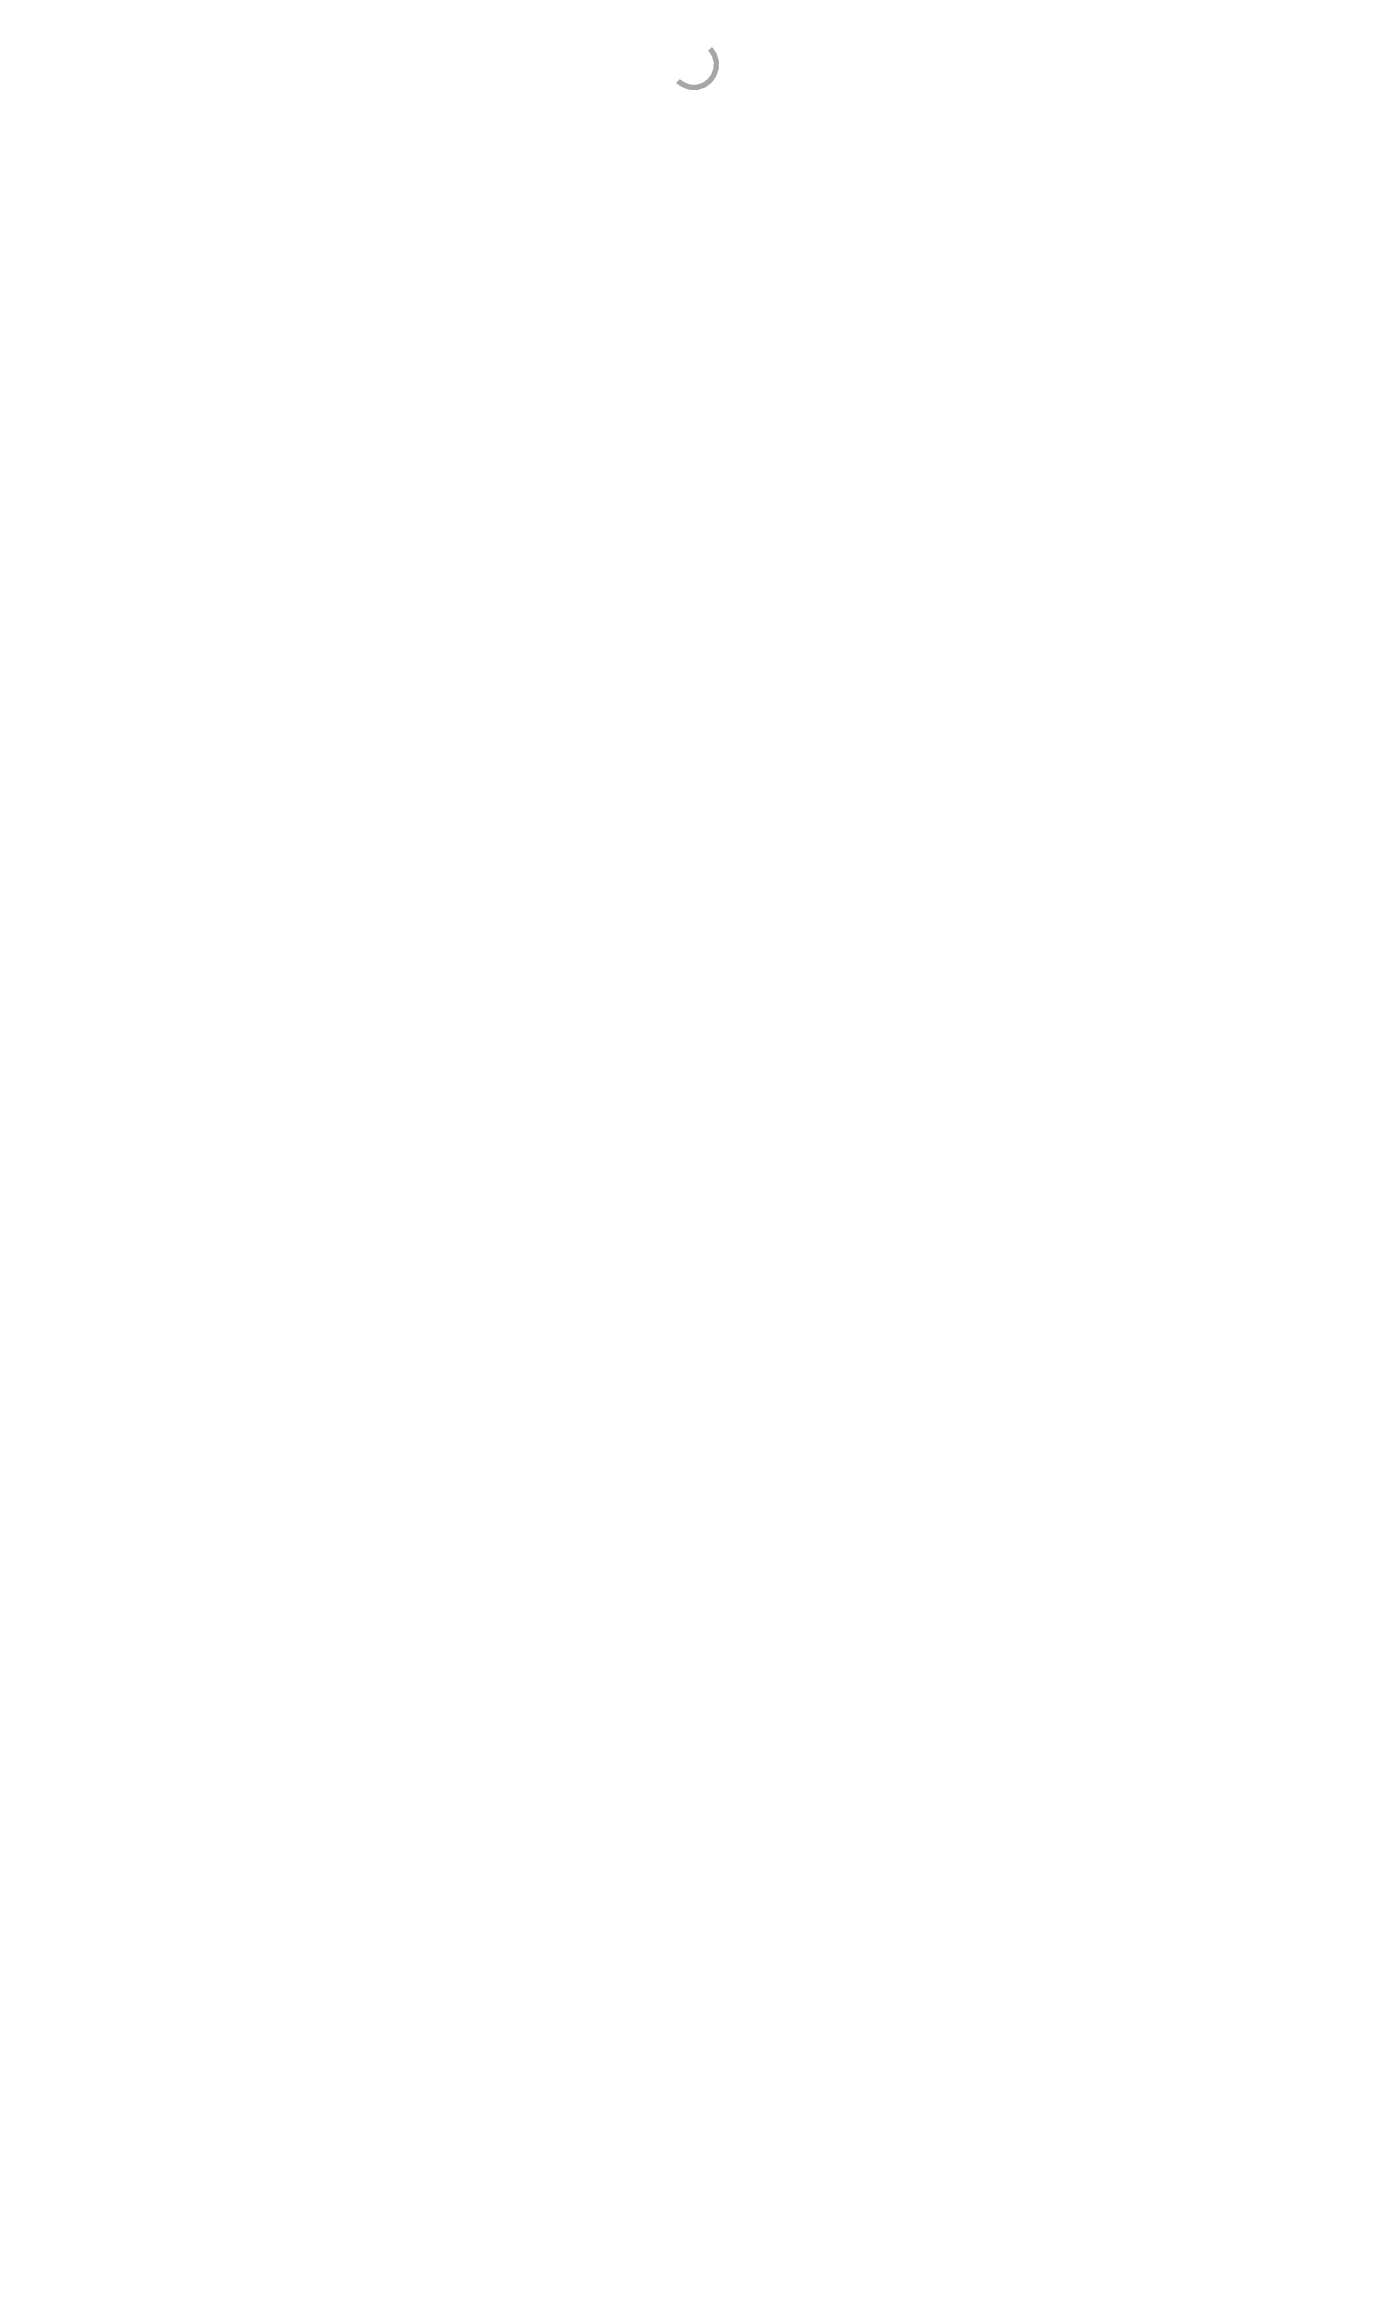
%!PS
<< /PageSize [1387 2308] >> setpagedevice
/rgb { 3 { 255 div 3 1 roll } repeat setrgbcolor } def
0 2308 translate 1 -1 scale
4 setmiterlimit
255 255 255 rgb
0 0 1387 2308 rectfill
166 166 166 rgb
5 setlinewidth
710 49 moveto 725.5 64.5 711 91.5 689.5 87 curveto 685.5 86 681 84 678 81 curveto stroke
showpage
